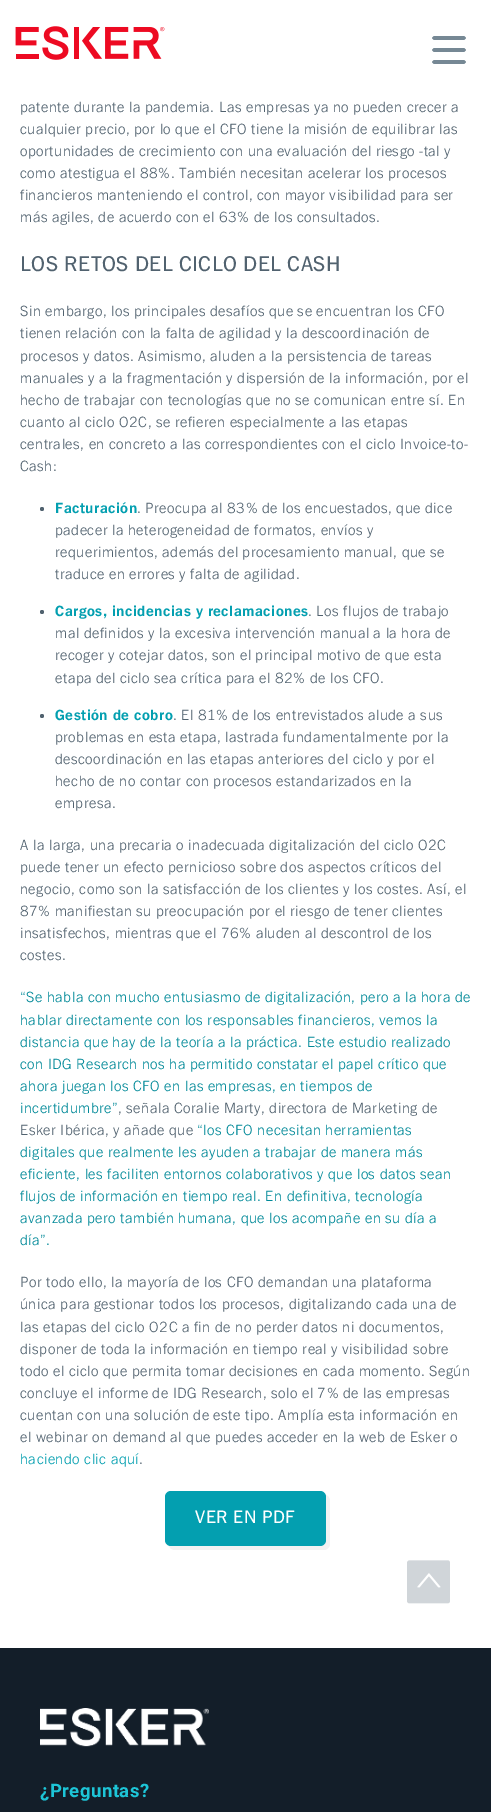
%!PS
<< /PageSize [491 1812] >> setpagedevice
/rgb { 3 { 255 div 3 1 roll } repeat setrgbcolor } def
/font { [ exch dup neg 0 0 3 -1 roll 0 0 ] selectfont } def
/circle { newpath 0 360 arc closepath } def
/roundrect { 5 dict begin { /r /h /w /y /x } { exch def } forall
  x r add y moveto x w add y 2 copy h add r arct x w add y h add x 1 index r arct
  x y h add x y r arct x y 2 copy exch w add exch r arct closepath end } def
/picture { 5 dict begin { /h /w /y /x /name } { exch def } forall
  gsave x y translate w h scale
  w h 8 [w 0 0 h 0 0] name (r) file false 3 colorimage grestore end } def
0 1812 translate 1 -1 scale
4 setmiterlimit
255 255 255 rgb
0 0 491 1812 rectfill
(img/1.rgb) 15 26 150 34 picture
(img/2.rgb) 432 36 34 28 picture
81 98 111 rgb
42 509 2 circle fill
42 612 2 circle fill
42 716 2 circle fill
242 242 242 rgb
169 1546 moveto 170 1548 172 1550 175 1550 curveto 324 1550 lineto 327 1550 330 1547 330 1544 curveto 330 1501 lineto 330 1498 328 1496 326 1495 curveto 326 1533 lineto 326 1537 327 1546 320 1546 curveto closepath fill
3 159 176 rgb
165 1491 161 55 6 roundrect fill
19 30 41 rgb
0 1648 491 164 rectfill
(img/3.rgb) 40 1708 169 39 picture
(img/4.rgb) 407 1560 43 44 picture
/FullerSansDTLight-Regular 14.75 font
81 98 111 rgb
20 112 moveto 0.5 0 (patente durante la pandemia. Las empresas ya no pueden crecer a) ashow
20 134 moveto 0.5 0 (cualquier precio, por lo que el CFO tiene la misión de equilibrar las) ashow
20 156 moveto 0.5 0 (oportunidades de crecimiento con una evaluación del riesgo -tal y) ashow
20 178 moveto 0.5 0 (como atestigua el 88%. También necesitan acelerar los procesos) ashow
20 200 moveto 0.5 0 (financieros manteniendo el control, con mayor visibilidad para ser) ashow
20 222 moveto 0.5 0 (más agiles, de acuerdo con el 63% de los consultados.) ashow
/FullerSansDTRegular-Regular 21.25 font
20 271 moveto 0.5 0 (LOS RETOS DEL CICLO DEL CASH) ashow
/FullerSansDTLight-Regular 14.75 font
20 316 moveto 0.5 0 (Sin embargo, los principales desafíos que se encuentran los CFO) ashow
20 338 moveto 0.5 0 (tienen relación con la falta de agilidad y la descoordinación de) ashow
20 361 moveto 0.5 0 (procesos y datos. Asimismo, aluden a la persistencia de tareas) ashow
20 383 moveto 0.5 0 (manuales y a la fragmentación y dispersión de la información, por el) ashow
20 405 moveto 0.5 0 (hecho de trabajar con tecnologías que no se comunican entre sí. En) ashow
20 427 moveto 0.5 0 (cuanto al ciclo O2C, se refieren especialmente a las etapas) ashow
20 449 moveto 0.5 0 (centrales, en concreto a las correspondientes con el ciclo Invoice-to-) ashow
20 471 moveto 0.5 0 (Cash:) ashow
/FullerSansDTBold-Regular 14.75 font
3 159 176 rgb
55 513 moveto 0.5 0 (Facturación) ashow
/FullerSansDTLight-Regular 14.75 font
81 98 111 rgb
137 513 moveto 0.5 0 (. Preocupa al 83% de los encuestados, que dice) ashow
55 535 moveto 0.5 0 (padecer la heterogeneidad de formatos, envíos y) ashow
55 557 moveto 0.5 0 (requerimientos, además del procesamiento manual, que se) ashow
55 579 moveto 0.5 0 (traduce en errores y falta de agilidad.) ashow
/FullerSansDTBold-Regular 14.75 font
3 159 176 rgb
55 616 moveto 0.5 0 (Cargos, incidencias y reclamaciones) ashow
/FullerSansDTLight-Regular 14.75 font
81 98 111 rgb
308 616 moveto 0.5 0 (. Los flujos de trabajo) ashow
55 638 moveto 0.5 0 (mal definidos y la excesiva intervención manual a la hora de) ashow
55 660 moveto 0.5 0 (recoger y cotejar datos, son el principal motivo de que esta) ashow
55 683 moveto 0.5 0 (etapa del ciclo sea crítica para el 82% de los CFO.) ashow
/FullerSansDTBold-Regular 14.75 font
3 159 176 rgb
55 720 moveto 0.5 0 (Gestión de cobro) ashow
/FullerSansDTLight-Regular 14.75 font
81 98 111 rgb
173 720 moveto 0.5 0 (. El 81% de los entrevistados alude a sus) ashow
55 742 moveto 0.5 0 (problemas en esta etapa, lastrada fundamentalmente por la) ashow
55 764 moveto 0.5 0 (descoordinación en las etapas anteriores del ciclo y por el) ashow
55 786 moveto 0.5 0 (hecho de no contar con procesos estandarizados en la) ashow
55 808 moveto 0.5 0 (empresa.) ashow
20 850 moveto 0.5 0 (A la larga, una precaria o inadecuada digitalización del ciclo O2C) ashow
20 872 moveto 0.5 0 (puede tener un efecto pernicioso sobre dos aspectos críticos del) ashow
20 894 moveto 0.5 0 (negocio, como son la satisfacción de los clientes y los costes. Así, el) ashow
20 916 moveto 0.5 0 (87% manifiestan su preocupación por el riesgo de tener clientes) ashow
20 938 moveto 0.5 0 (insatisfechos, mientras que el 76% aluden al descontrol de los) ashow
20 960 moveto 0.5 0 (costes.) ashow
0 137 152 rgb
20 1002 moveto 0.5 0 (“Se habla con mucho entusiasmo de digitalización, pero a la hora de) ashow
20 1025 moveto 0.5 0 (hablar directamente con los responsables financieros, vemos la) ashow
20 1047 moveto 0.5 0 (distancia que hay de la teoría a la práctica. Este estudio realizado) ashow
20 1069 moveto 0.5 0 (con IDG Research nos ha permitido constatar el papel crítico que) ashow
20 1091 moveto 0.5 0 (ahora juegan los CFO en las empresas, en tiempos de) ashow
20 1113 moveto 0.5 0 (incertidumbre”) ashow
81 98 111 rgb
118 1113 moveto 0.5 0 (, señala Coralie Marty, directora de Marketing de) ashow
20 1135 moveto 0.5 0 (Esker Ibérica, y añade que) ashow
0 137 152 rgb
197 1135 moveto 0.5 0 (“los CFO necesitan herramientas) ashow
20 1157 moveto 0.5 0 (digitales que realmente les ayuden a trabajar de manera más) ashow
20 1179 moveto 0.5 0 (eficiente, les faciliten entornos colaborativos y que los datos sean) ashow
20 1201 moveto 0.5 0 (flujos de información en tiempo real. En definitiva, tecnología) ashow
20 1223 moveto 0.5 0 (avanzada pero también humana, que los acompañe en su día a) ashow
20 1245 moveto 0.5 0 (día”.) ashow
81 98 111 rgb
20 1287 moveto 0.5 0 (Por todo ello, la mayoría de los CFO demandan una plataforma) ashow
20 1309 moveto 0.5 0 (única para gestionar todos los procesos, digitalizando cada una de) ashow
20 1332 moveto 0.5 0 (las etapas del ciclo O2C a fin de no perder datos ni documentos,) ashow
20 1354 moveto 0.5 0 (disponer de toda la información en tiempo real y visibilidad sobre) ashow
20 1376 moveto 0.5 0 (todo el ciclo que permita tomar decisiones en cada momento. Según) ashow
20 1398 moveto 0.5 0 (concluye el informe de IDG Research, solo el 7% de las empresas) ashow
20 1420 moveto 0.5 0 (cuentan con una solución de este tipo. Amplía esta información en) ashow
20 1442 moveto 0.5 0 (el webinar on demand al que puedes acceder en la web de Esker o) ashow
3 159 176 rgb
20 1464 moveto 0.5 0 (haciendo clic aquí) ashow
81 98 111 rgb
139 1464 moveto 0.5 0 (.) ashow
/FullerSansDTRegular-Regular 18 font
255 255 255 rgb
195 1523 moveto 0.5 0 (VER EN PDF) ashow
/Roboto-Bold 18.5 font
29 197 215 rgb
40 1797 moveto 0.5 0 (¿Preguntas?) ashow
showpage
